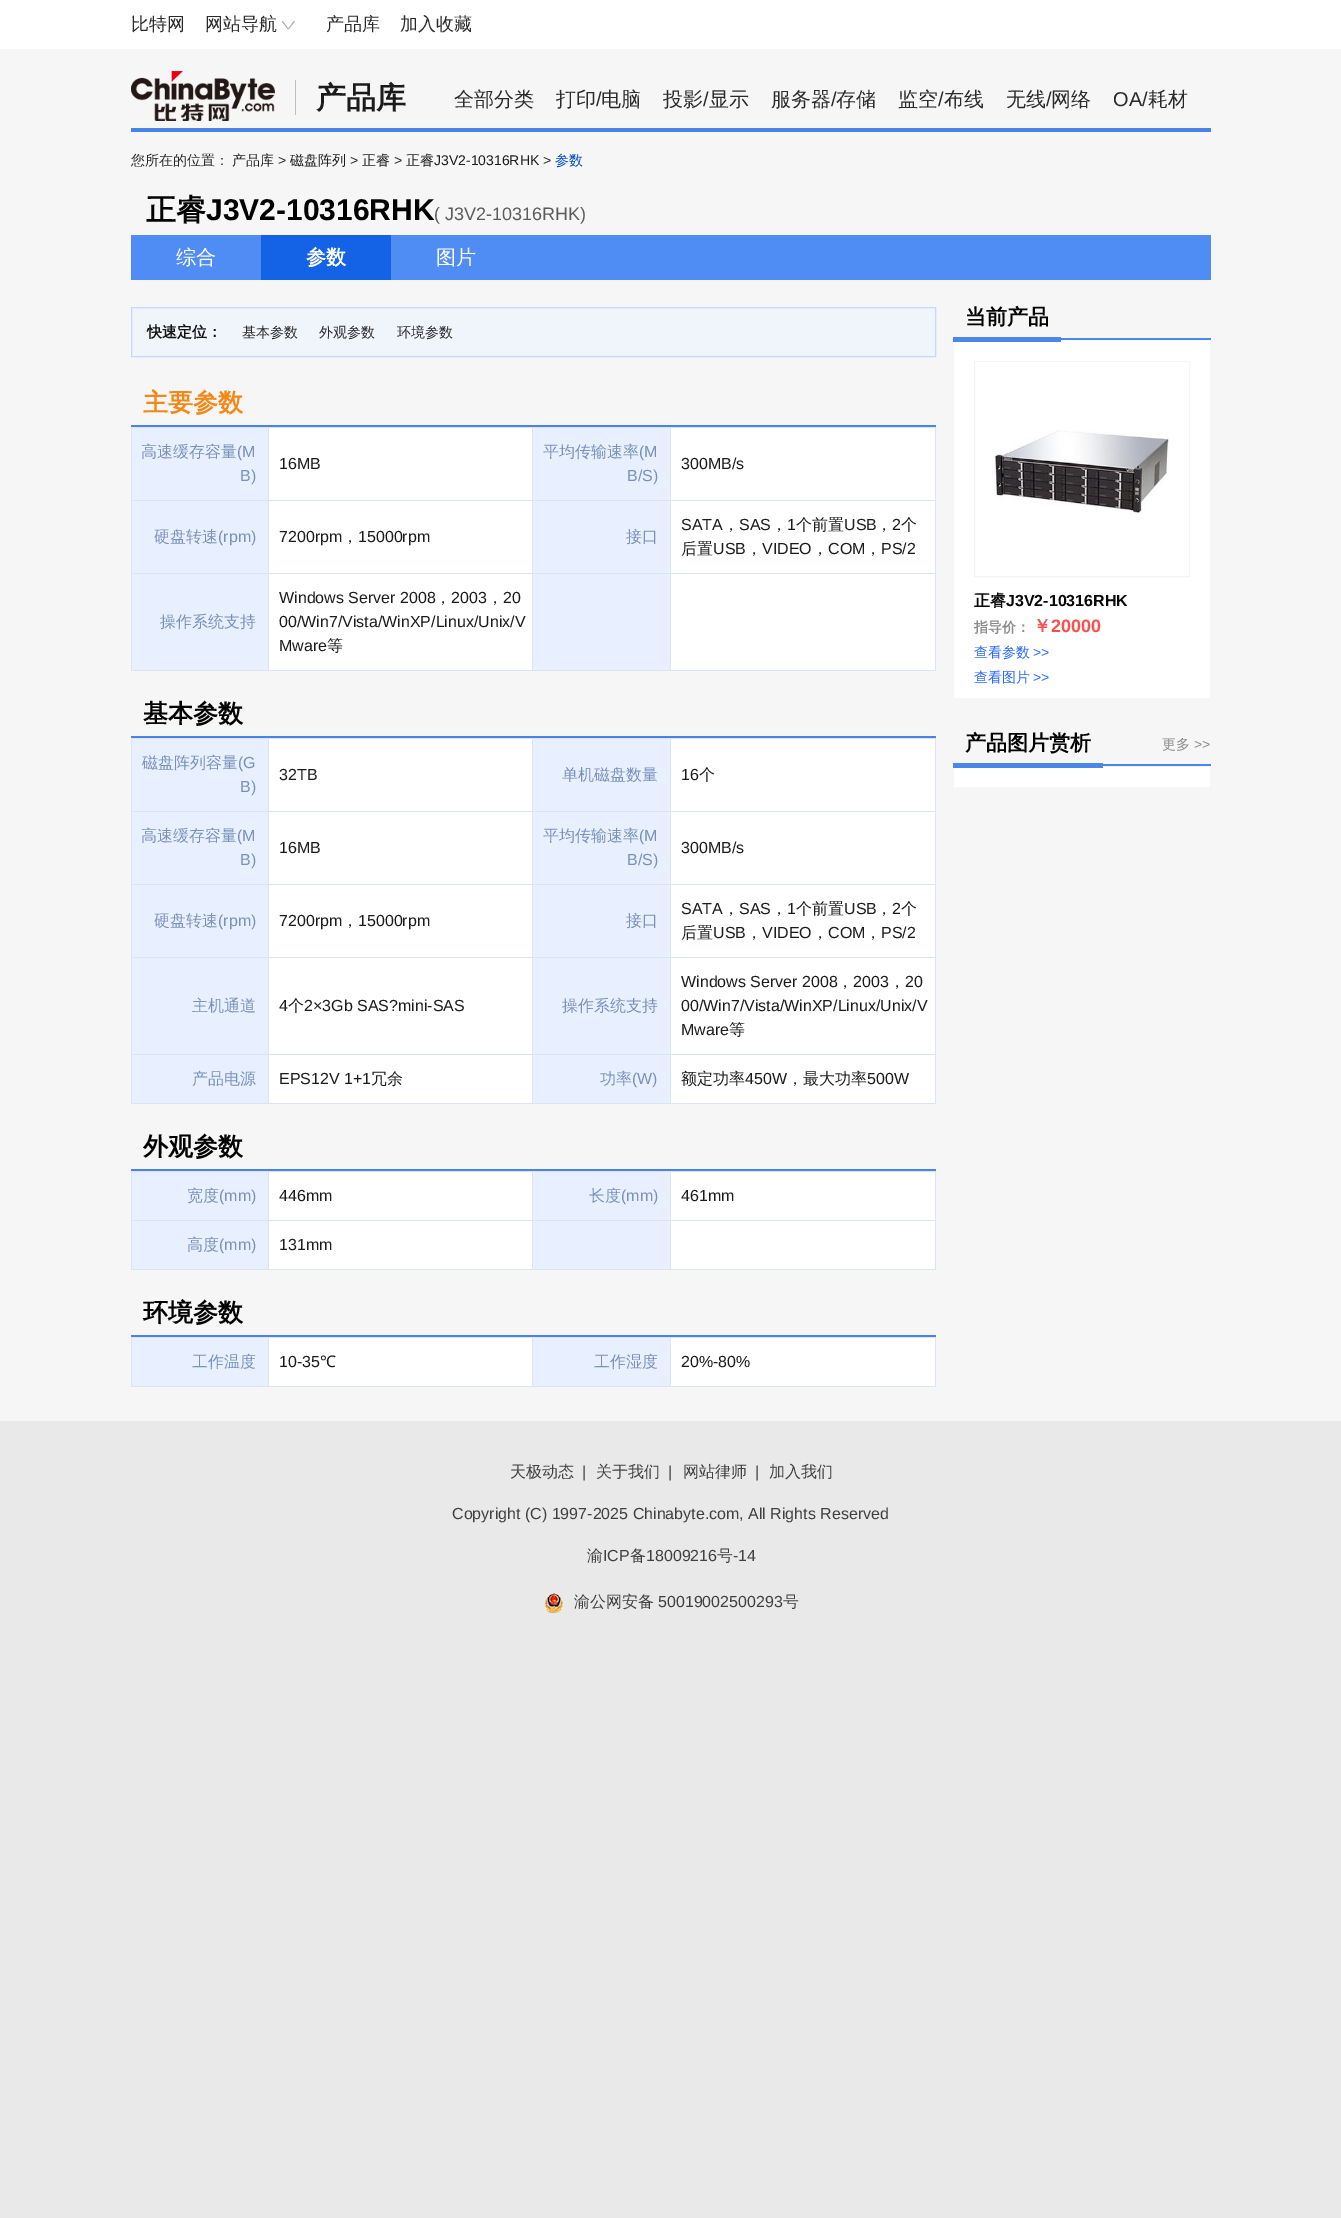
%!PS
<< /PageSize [1341 2218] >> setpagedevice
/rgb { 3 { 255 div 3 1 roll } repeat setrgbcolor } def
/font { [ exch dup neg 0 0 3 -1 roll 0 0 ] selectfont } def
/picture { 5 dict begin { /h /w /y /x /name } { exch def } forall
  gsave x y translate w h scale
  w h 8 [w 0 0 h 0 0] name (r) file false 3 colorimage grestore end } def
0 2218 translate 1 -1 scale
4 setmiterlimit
233 233 233 rgb
0 0 1341 2218 rectfill
255 255 255 rgb
0 0 1341 49 rectfill
(img/1.rgb) 282 21 13 9 picture
246 246 246 rgb
0 49 1341 1372 rectfill
72 132 232 rgb
131 128 1080 4 rectfill
(img/2.rgb) 131 71 144 50 picture
[
  [295 80 1 35 191 191 191]
  [131 235 1080 45 79 141 245]
  [261 235 130 45 20 98 229]
] { aload pop rgb rectfill } forall
240 244 251 rgb
131.5 307.5 moveto 935.5 307.5 lineto 935.5 356.5 lineto 131.5 356.5 lineto closepath gsave fill grestore
195 217 255 rgb
stroke
[
  [131 425 805 2 72 132 232]
  [269 428 666 242 255 255 255]
  [131 427 805 1 219 228 242]
  [935 427 1 244 219 228 242]
  [131 670 805 1 219 228 242]
  [131 427 1 244 219 228 242]
  [132 428 136 72 232 240 255]
  [670 500 266 1 219 228 242]
  [670 573 266 1 219 228 242]
  [670 573 1 98 219 228 242]
  [532 573 139 1 219 228 242]
  [670 500 1 74 219 228 242]
  [532 500 139 1 219 228 242]
  [532 573 1 98 219 228 242]
  [268 573 265 1 219 228 242]
  [532 500 1 74 219 228 242]
  [268 500 265 1 219 228 242]
  [268 573 1 98 219 228 242]
  [131 573 138 1 219 228 242]
  [268 500 1 74 219 228 242]
  [131 500 138 1 219 228 242]
  [268 427 1 74 219 228 242]
  [533 428 137 72 232 240 255]
  [532 427 1 74 219 228 242]
  [670 427 1 74 219 228 242]
  [132 501 136 72 232 240 255]
  [533 501 137 72 232 240 255]
  [132 574 136 96 232 240 255]
  [533 574 137 96 232 240 255]
  [131 736 805 2 72 132 232]
  [269 739 666 364 255 255 255]
  [131 738 805 1 219 228 242]
  [935 738 1 366 219 228 242]
  [131 1103 805 1 219 228 242]
  [131 738 1 366 219 228 242]
  [132 739 136 72 232 240 255]
  [670 811 266 1 219 228 242]
  [670 884 266 1 219 228 242]
  [670 957 266 1 219 228 242]
  [670 1054 266 1 219 228 242]
  [670 1054 1 50 219 228 242]
  [532 1054 139 1 219 228 242]
  [670 957 1 98 219 228 242]
  [532 957 139 1 219 228 242]
  [670 884 1 74 219 228 242]
  [532 884 139 1 219 228 242]
  [670 811 1 74 219 228 242]
  [532 811 139 1 219 228 242]
  [532 1054 1 50 219 228 242]
  [268 1054 265 1 219 228 242]
  [532 957 1 98 219 228 242]
  [268 957 265 1 219 228 242]
  [532 884 1 74 219 228 242]
  [268 884 265 1 219 228 242]
  [532 811 1 74 219 228 242]
  [268 811 265 1 219 228 242]
  [268 1054 1 50 219 228 242]
  [131 1054 138 1 219 228 242]
  [268 957 1 98 219 228 242]
  [131 957 138 1 219 228 242]
  [268 884 1 74 219 228 242]
  [131 884 138 1 219 228 242]
  [268 811 1 74 219 228 242]
  [131 811 138 1 219 228 242]
  [268 738 1 74 219 228 242]
  [533 739 137 72 232 240 255]
  [532 738 1 74 219 228 242]
  [670 738 1 74 219 228 242]
  [132 812 136 72 232 240 255]
  [533 812 137 72 232 240 255]
  [132 885 136 72 232 240 255]
  [533 885 137 72 232 240 255]
  [132 958 136 96 232 240 255]
  [533 958 137 96 232 240 255]
  [132 1055 136 48 232 240 255]
  [533 1055 137 48 232 240 255]
  [131 1169 805 2 72 132 232]
  [269 1172 666 97 255 255 255]
  [131 1171 805 1 219 228 242]
  [935 1171 1 99 219 228 242]
  [131 1269 805 1 219 228 242]
  [131 1171 1 99 219 228 242]
  [132 1172 136 48 232 240 255]
  [670 1220 266 1 219 228 242]
  [670 1220 1 50 219 228 242]
  [532 1220 139 1 219 228 242]
  [532 1220 1 50 219 228 242]
  [268 1220 265 1 219 228 242]
  [268 1220 1 50 219 228 242]
  [131 1220 138 1 219 228 242]
  [268 1171 1 50 219 228 242]
  [533 1172 137 48 232 240 255]
  [532 1171 1 50 219 228 242]
  [670 1171 1 50 219 228 242]
  [132 1221 136 48 232 240 255]
  [533 1221 137 48 232 240 255]
  [131 1335 805 2 72 132 232]
  [269 1338 666 48 255 255 255]
  [131 1337 805 1 219 228 242]
  [935 1337 1 50 219 228 242]
  [131 1386 805 1 219 228 242]
  [131 1337 1 50 219 228 242]
  [132 1338 136 48 232 240 255]
  [268 1337 1 50 219 228 242]
  [533 1338 137 48 232 240 255]
  [532 1337 1 50 219 228 242]
  [670 1337 1 50 219 228 242]
  [1061 338 150 2 75 135 234]
  [954 341 256 357 255 255 255]
  [953 337 108 5 75 135 234]
] { aload pop rgb rectfill } forall
244 244 244 rgb
974.5 361.5 215 215 rectstroke
(img/3.rgb) 994 430 176 84 picture
[
  [1103 764 108 2 75 135 234]
  [954 767 256 20 255 255 255]
  [953 763 150 5 75 135 234]
] { aload pop rgb rectfill } forall
(img/4.rgb) 545 1593 18 20 picture
/WenQuanYiZenHei-Medium 18 font
42 42 42 rgb
[
  [(比特网) 131 30]
  [(网站导航) 205 30]
  [(产品库) 326 30]
  [(加入收藏) 400 30]
] { aload pop moveto show } forall
/WenQuanYiZenHei-Bold 30 font
27 27 28 rgb
316 108 moveto (产品库) show
/WenQuanYiZenHei-Medium 20 font
42 42 42 rgb
454 106 moveto (全部分类) show
556 106 moveto (打印) show
/LiberationSans-Regular 20 font
596 106 moveto (/) show
/WenQuanYiZenHei-Medium 20 font
601 106 moveto (电脑) show
663 106 moveto (投影) show
/LiberationSans-Regular 20 font
703 106 moveto (/) show
/WenQuanYiZenHei-Medium 20 font
709 106 moveto (显示) show
771 106 moveto (服务器) show
/LiberationSans-Regular 20 font
831 106 moveto (/) show
/WenQuanYiZenHei-Medium 20 font
836 106 moveto (存储) show
898 106 moveto (监空) show
/LiberationSans-Regular 20 font
938 106 moveto (/) show
/WenQuanYiZenHei-Medium 20 font
944 106 moveto (布线) show
1006 106 moveto (无线) show
/LiberationSans-Regular 20 font
1046 106 moveto (/) show
/WenQuanYiZenHei-Medium 20 font
1051 106 moveto (网络) show
/LiberationSans-Regular 20 font
1113 106 moveto (OA/) show
/WenQuanYiZenHei-Medium 20 font
1148 106 moveto (耗材) show
/WenQuanYiZenHei-Medium 14 font
131 165 moveto (您所在的位置：) show
27 27 28 rgb
232 165 moveto (产品库) show
/LiberationSans-Regular 14 font
42 42 42 rgb
278 165 moveto (>) show
/WenQuanYiZenHei-Medium 14 font
27 27 28 rgb
290 165 moveto (磁盘阵列) show
/LiberationSans-Regular 14 font
42 42 42 rgb
350 165 moveto (>) show
/WenQuanYiZenHei-Medium 14 font
27 27 28 rgb
362 165 moveto (正睿) show
/LiberationSans-Regular 14 font
42 42 42 rgb
394 165 moveto (>) show
/WenQuanYiZenHei-Medium 14 font
27 27 28 rgb
406 165 moveto (正睿) show
/LiberationSans-Regular 14 font
434 165 moveto (J3V2-10316RHK) show
42 42 42 rgb
543 165 moveto (>) show
/WenQuanYiZenHei-Medium 14 font
0 76 202 rgb
555 165 moveto (参数) show
/WenQuanYiZenHei-Bold 30 font
1 1 1 rgb
146 220 moveto (正睿) show
/LiberationSans-Bold 30 font
206 220 moveto (J3V2-10316RHK) show
/LiberationSans-Regular 18 font
92 92 92 rgb
434 220 moveto (\( J3V2-10316RHK\)) show
/WenQuanYiZenHei-Medium 20 font
255 255 255 rgb
176 264 moveto (综合) show
/WenQuanYiZenHei-Bold 20 font
306 264 moveto (参数) show
/WenQuanYiZenHei-Medium 20 font
436 264 moveto (图片) show
/WenQuanYiZenHei-Bold 15 font
18 19 19 rgb
147 337 moveto (快速定位：) show
/WenQuanYiZenHei-Medium 14 font
42 42 42 rgb
[
  [(基本参数) 242 337]
  [(外观参数) 319 337]
  [(环境参数) 397 337]
] { aload pop moveto show } forall
/WenQuanYiZenHei-Bold 25 font
243 136 22 rgb
143 411 moveto (主要参数) show
/WenQuanYiZenHei-Medium 16 font
122 144 184 rgb
141 457 moveto (高速缓存容量) show
/LiberationSans-Regular 16 font
237 457 moveto (\(M) show
240 481 moveto (B\)) show
27 27 28 rgb
279 469 moveto (16MB) show
/WenQuanYiZenHei-Medium 16 font
122 144 184 rgb
543 457 moveto (平均传输速率) show
/LiberationSans-Regular 16 font
639 457 moveto (\(M) show
627 481 moveto (B/S\)) show
27 27 28 rgb
681 469 moveto (300MB/s) show
/WenQuanYiZenHei-Medium 16 font
122 144 184 rgb
154 542 moveto (硬盘转速) show
/LiberationSans-Regular 16 font
218 542 moveto (\(rpm\)) show
27 27 28 rgb
279 542 moveto (7200rpm) show
/WenQuanYiZenHei-Medium 16 font
342 542 moveto (，) show
/LiberationSans-Regular 16 font
358 542 moveto (15000rpm) show
/WenQuanYiZenHei-Medium 16 font
122 144 184 rgb
626 542 moveto (接口) show
/LiberationSans-Regular 16 font
27 27 28 rgb
[
  [(SATA) 681 530]
  [(SAS) 739 530]
  [(1) 787 530]
] { aload pop moveto show } forall
/WenQuanYiZenHei-Medium 16 font
796 530 moveto (个前置) show
/LiberationSans-Regular 16 font
844 530 moveto (USB) show
892 530 moveto (2) show
/WenQuanYiZenHei-Medium 16 font
[
  [(个) 901 530]
  [(，) 723 530]
  [(，) 771 530]
  [(，) 876 530]
  [(后置) 681 554]
] { aload pop moveto show } forall
/LiberationSans-Regular 16 font
713 554 moveto (USB) show
/WenQuanYiZenHei-Medium 16 font
746 554 moveto (，) show
/LiberationSans-Regular 16 font
762 554 moveto (VIDEO) show
/WenQuanYiZenHei-Medium 16 font
812 554 moveto (，) show
/LiberationSans-Regular 16 font
828 554 moveto (COM) show
/WenQuanYiZenHei-Medium 16 font
865 554 moveto (，) show
/LiberationSans-Regular 16 font
881 554 moveto (PS/2) show
/WenQuanYiZenHei-Medium 16 font
122 144 184 rgb
160 627 moveto (操作系统支持) show
/LiberationSans-Regular 16 font
27 27 28 rgb
279 603 moveto (Windows Server 2008) show
/WenQuanYiZenHei-Medium 16 font
435 603 moveto (，) show
/LiberationSans-Regular 16 font
451 603 moveto (2003) show
/WenQuanYiZenHei-Medium 16 font
487 603 moveto (，) show
/LiberationSans-Regular 16 font
[
  [(20) 503 603]
  [(00/Win7/Vista/WinXP/Linux/Unix/V) 279 627]
  [(Mware) 279 651]
] { aload pop moveto show } forall
/WenQuanYiZenHei-Medium 16 font
327 651 moveto (等) show
/WenQuanYiZenHei-Bold 25 font
1 1 1 rgb
143 722 moveto (基本参数) show
/WenQuanYiZenHei-Medium 16 font
122 144 184 rgb
142 768 moveto (磁盘阵列容量) show
/LiberationSans-Regular 16 font
238 768 moveto (\(G) show
240 792 moveto (B\)) show
27 27 28 rgb
279 780 moveto (32TB) show
/WenQuanYiZenHei-Medium 16 font
122 144 184 rgb
562 780 moveto (单机磁盘数量) show
/LiberationSans-Regular 16 font
27 27 28 rgb
681 780 moveto (16) show
/WenQuanYiZenHei-Medium 16 font
699 780 moveto (个) show
122 144 184 rgb
141 841 moveto (高速缓存容量) show
/LiberationSans-Regular 16 font
237 841 moveto (\(M) show
240 865 moveto (B\)) show
27 27 28 rgb
279 853 moveto (16MB) show
/WenQuanYiZenHei-Medium 16 font
122 144 184 rgb
543 841 moveto (平均传输速率) show
/LiberationSans-Regular 16 font
639 841 moveto (\(M) show
627 865 moveto (B/S\)) show
27 27 28 rgb
681 853 moveto (300MB/s) show
/WenQuanYiZenHei-Medium 16 font
122 144 184 rgb
154 926 moveto (硬盘转速) show
/LiberationSans-Regular 16 font
218 926 moveto (\(rpm\)) show
27 27 28 rgb
279 926 moveto (7200rpm) show
/WenQuanYiZenHei-Medium 16 font
342 926 moveto (，) show
/LiberationSans-Regular 16 font
358 926 moveto (15000rpm) show
/WenQuanYiZenHei-Medium 16 font
122 144 184 rgb
626 926 moveto (接口) show
/LiberationSans-Regular 16 font
27 27 28 rgb
[
  [(SATA) 681 914]
  [(SAS) 739 914]
  [(1) 787 914]
] { aload pop moveto show } forall
/WenQuanYiZenHei-Medium 16 font
796 914 moveto (个前置) show
/LiberationSans-Regular 16 font
844 914 moveto (USB) show
892 914 moveto (2) show
/WenQuanYiZenHei-Medium 16 font
[
  [(个) 901 914]
  [(，) 723 914]
  [(，) 771 914]
  [(，) 876 914]
  [(后置) 681 938]
] { aload pop moveto show } forall
/LiberationSans-Regular 16 font
713 938 moveto (USB) show
/WenQuanYiZenHei-Medium 16 font
746 938 moveto (，) show
/LiberationSans-Regular 16 font
762 938 moveto (VIDEO) show
/WenQuanYiZenHei-Medium 16 font
812 938 moveto (，) show
/LiberationSans-Regular 16 font
828 938 moveto (COM) show
/WenQuanYiZenHei-Medium 16 font
865 938 moveto (，) show
/LiberationSans-Regular 16 font
881 938 moveto (PS/2) show
/WenQuanYiZenHei-Medium 16 font
122 144 184 rgb
192 1011 moveto (主机通道) show
/LiberationSans-Regular 16 font
27 27 28 rgb
279 1011 moveto (4) show
/WenQuanYiZenHei-Medium 16 font
288 1011 moveto (个) show
/LiberationSans-Regular 16 font
304 1011 moveto (2×3Gb SAS?mini-SAS) show
/WenQuanYiZenHei-Medium 16 font
122 144 184 rgb
562 1011 moveto (操作系统支持) show
/LiberationSans-Regular 16 font
27 27 28 rgb
681 987 moveto (Windows Server 2008) show
/WenQuanYiZenHei-Medium 16 font
837 987 moveto (，) show
/LiberationSans-Regular 16 font
853 987 moveto (2003) show
/WenQuanYiZenHei-Medium 16 font
889 987 moveto (，) show
/LiberationSans-Regular 16 font
[
  [(20) 905 987]
  [(00/Win7/Vista/WinXP/Linux/Unix/V) 681 1011]
  [(Mware) 681 1035]
] { aload pop moveto show } forall
/WenQuanYiZenHei-Medium 16 font
729 1035 moveto (等) show
122 144 184 rgb
192 1084 moveto (产品电源) show
/LiberationSans-Regular 16 font
27 27 28 rgb
279 1084 moveto (EPS12V 1+1) show
/WenQuanYiZenHei-Medium 16 font
371 1084 moveto (冗余) show
122 144 184 rgb
600 1084 moveto (功率) show
/LiberationSans-Regular 16 font
632 1084 moveto (\(W\)) show
/WenQuanYiZenHei-Medium 16 font
27 27 28 rgb
681 1084 moveto (额定功率) show
/LiberationSans-Regular 16 font
745 1084 moveto (450W) show
/WenQuanYiZenHei-Medium 16 font
787 1084 moveto (，最大功率) show
/LiberationSans-Regular 16 font
867 1084 moveto (500W) show
/WenQuanYiZenHei-Bold 25 font
1 1 1 rgb
143 1155 moveto (外观参数) show
/WenQuanYiZenHei-Medium 16 font
122 144 184 rgb
187 1201 moveto (宽度) show
/LiberationSans-Regular 16 font
219 1201 moveto (\(mm\)) show
27 27 28 rgb
279 1201 moveto (446mm) show
/WenQuanYiZenHei-Medium 16 font
122 144 184 rgb
589 1201 moveto (长度) show
/LiberationSans-Regular 16 font
621 1201 moveto (\(mm\)) show
27 27 28 rgb
681 1201 moveto (461mm) show
/WenQuanYiZenHei-Medium 16 font
122 144 184 rgb
187 1250 moveto (高度) show
/LiberationSans-Regular 16 font
219 1250 moveto (\(mm\)) show
27 27 28 rgb
279 1250 moveto (131mm) show
/WenQuanYiZenHei-Bold 25 font
1 1 1 rgb
143 1321 moveto (环境参数) show
/WenQuanYiZenHei-Medium 16 font
122 144 184 rgb
192 1367 moveto (工作温度) show
/LiberationSans-Regular 16 font
27 27 28 rgb
279 1367 moveto (10-35) show
/NotoSans-Regular 16 font
320 1367 moveto (℃) show
/WenQuanYiZenHei-Medium 16 font
122 144 184 rgb
594 1367 moveto (工作湿度) show
/LiberationSans-Regular 16 font
27 27 28 rgb
681 1367 moveto (20%-80%) show
/WenQuanYiZenHei-Bold 21 font
1 1 1 rgb
965 324 moveto (当前产品) show
/WenQuanYiZenHei-Bold 16 font
8 8 8 rgb
974 606 moveto (正睿) show
/LiberationSans-Bold 16 font
1006 606 moveto (J3V2-10316RHK) show
/WenQuanYiZenHei-Bold 14 font
139 139 139 rgb
974 632 moveto (指导价：) show
/WenQuanYiZenHei-Bold 18 font
249 80 80 rgb
1033 632 moveto (￥) show
/LiberationSans-Bold 18 font
1051 632 moveto (20000) show
/WenQuanYiZenHei-Medium 14 font
44 104 255 rgb
974 657 moveto (查看参数) show
/LiberationSans-Regular 14 font
1033 657 moveto (>>) show
/WenQuanYiZenHei-Medium 14 font
974 682 moveto (查看图片) show
/LiberationSans-Regular 14 font
1033 682 moveto (>>) show
/WenQuanYiZenHei-Bold 21 font
1 1 1 rgb
965 750 moveto (产品图片赏析) show
/WenQuanYiZenHei-Medium 14 font
139 139 139 rgb
1162 749 moveto (更多) show
/LiberationSans-Regular 14 font
1194 749 moveto (>>) show
/WenQuanYiZenHei-Medium 16 font
64 64 64 rgb
510 1477 moveto (天极动态) show
/LiberationSans-Regular 16 font
582 1477 moveto (|) show
/WenQuanYiZenHei-Medium 16 font
596 1477 moveto (关于我们) show
/LiberationSans-Regular 16 font
668 1477 moveto (|) show
/WenQuanYiZenHei-Medium 16 font
683 1477 moveto (网站律师) show
/LiberationSans-Regular 16 font
755 1477 moveto (|) show
/WenQuanYiZenHei-Medium 16 font
769 1477 moveto (加入我们) show
/LiberationSans-Regular 16 font
452 1519 moveto (Copyright \(C\) 1997-2025 Chinabyte.com, All Rights Reserved) show
/WenQuanYiZenHei-Medium 16 font
587 1561 moveto (渝) show
/LiberationSans-Regular 16 font
603 1561 moveto (ICP) show
/WenQuanYiZenHei-Medium 16 font
630 1561 moveto (备) show
/LiberationSans-Regular 16 font
646 1561 moveto (18009216) show
/WenQuanYiZenHei-Medium 16 font
717 1561 moveto (号) show
/LiberationSans-Regular 16 font
733 1561 moveto (-14) show
/WenQuanYiZenHei-Medium 16 font
574 1607 moveto (渝公网安备) show
/LiberationSans-Regular 16 font
658 1607 moveto (50019002500293) show
/WenQuanYiZenHei-Medium 16 font
783 1607 moveto (号) show
showpage
